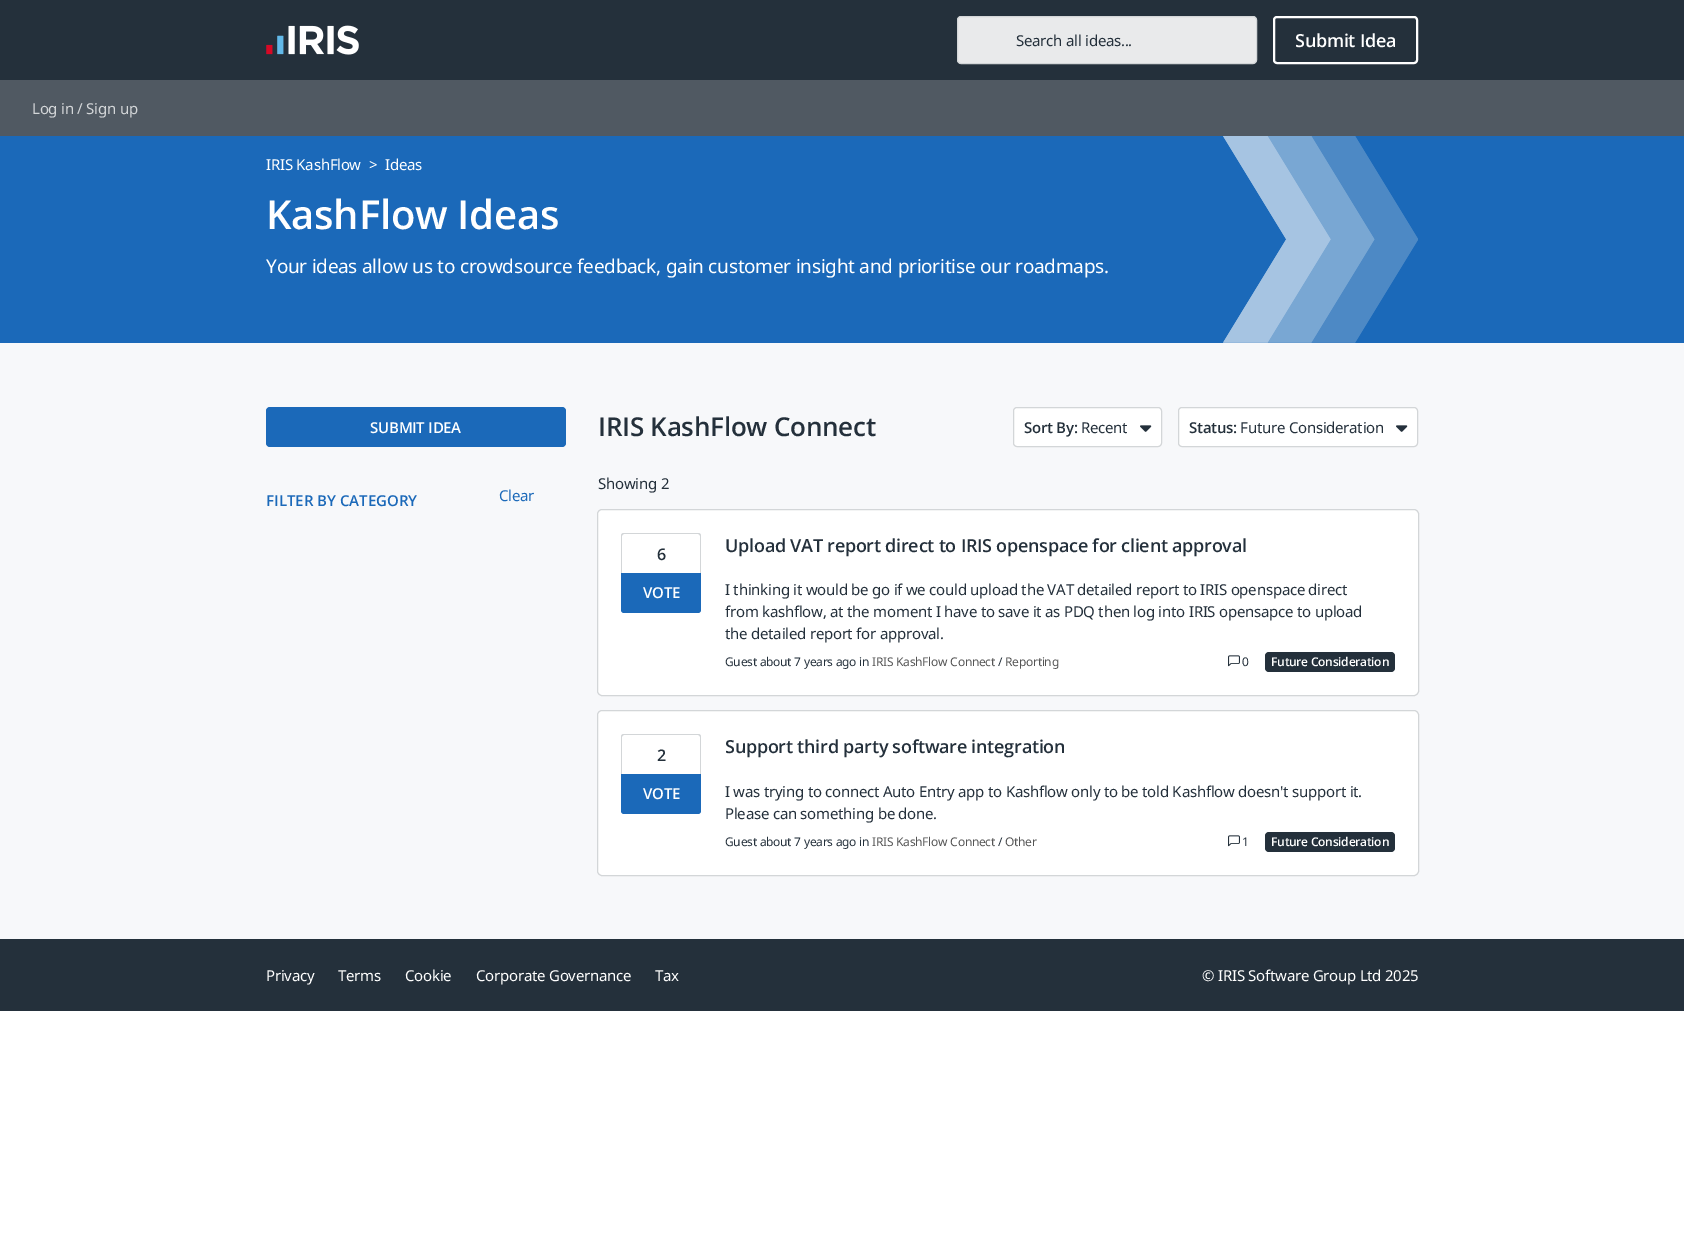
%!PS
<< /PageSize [1684 1241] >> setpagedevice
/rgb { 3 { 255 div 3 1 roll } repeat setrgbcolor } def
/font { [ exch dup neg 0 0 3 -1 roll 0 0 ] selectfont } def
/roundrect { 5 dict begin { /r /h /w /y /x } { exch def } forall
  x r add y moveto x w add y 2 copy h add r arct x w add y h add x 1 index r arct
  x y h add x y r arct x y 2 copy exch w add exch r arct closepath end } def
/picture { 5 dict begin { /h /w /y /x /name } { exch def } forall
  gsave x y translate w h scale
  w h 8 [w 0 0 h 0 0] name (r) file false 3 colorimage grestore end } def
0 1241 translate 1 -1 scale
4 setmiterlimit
255 255 255 rgb
0 0 1684 1241 rectfill
36 48 59 rgb
0 0 1684 80 rectfill
(img/1.rgb) 266 25 93 30 picture
233 234 235 rgb
957.5 16.5 299 47 3.5 roundrect gsave fill grestore
211 214 216 rgb
stroke
255 255 255 rgb
2 setlinewidth
1274 17 143 46 3 roundrect stroke
80 89 98 rgb
0 80 1684 56 rectfill
27 105 185 rgb
0 136 1684 207 rectfill
(img/2.rgb) 1223 136 195 207 picture
247 248 250 rgb
0 343 1684 596 rectfill
27 105 185 rgb
266 407 300 40 4 roundrect fill
255 255 255 rgb
1013.5 407.5 148 39 3.5 roundrect gsave fill grestore
211 214 216 rgb
1 setlinewidth
stroke
(img/3.rgb) 1140 425 12 7 picture
255 255 255 rgb
1178.5 407.5 239 39 3.5 roundrect gsave fill grestore
211 214 216 rgb
stroke
(img/3.rgb) 1396 425 12 7 picture
255 255 255 rgb
597.5 509.5 821 186 4.5 roundrect gsave fill grestore
211 214 216 rgb
stroke
624 533 moveto 698 533 lineto 700 533 701 534 701 536 curveto 701 573 lineto 621 573 lineto 621 536 lineto 621 534 622 533 624 533 curveto closepath 624 534 moveto 698 534 lineto 699 534 700 535 700 536 curveto 700 573 lineto 622 573 lineto 622 536 lineto 622 535 623 534 624 534 curveto closepath eofill
27 105 185 rgb
621 573 moveto 701 573 lineto 701 610 lineto 701 611.5 699.5 613 698 613 curveto 624 613 lineto 622.5 613 621 611.5 621 610 curveto closepath fill
(img/4.rgb) 1228 655 12 12 picture
36 48 59 rgb
1265 652 130 20 4 roundrect fill
255 255 255 rgb
597.5 710.5 821 165 4.5 roundrect gsave fill grestore
211 214 216 rgb
stroke
624 734 moveto 698 734 lineto 700 734 701 735 701 737 curveto 701 774 lineto 621 774 lineto 621 737 lineto 621 735 622 734 624 734 curveto closepath 624 735 moveto 698 735 lineto 699 735 700 736 700 737 curveto 700 774 lineto 622 774 lineto 622 737 lineto 622 736 623 735 624 735 curveto closepath eofill
27 105 185 rgb
621 774 moveto 701 774 lineto 701 811 lineto 701 812.5 699.5 814 698 814 curveto 624 814 lineto 622.5 814 621 812.5 621 811 curveto closepath fill
(img/4.rgb) 1228 835 12 12 picture
36 48 59 rgb
1265 832 130 20 4 roundrect fill
0 939 1684 72 rectfill
/NotoSans-Regular 15 font
1016 46 moveto -0.25 0 (Search all ideas...) ashow
/OpenSans-SemiBold 18 font
255 255 255 rgb
1295 47 moveto -0.25 0 (Submit Idea) ashow
/NotoSans-Regular 15 font
211 214 216 rgb
32 114 moveto -0.25 0 (Log in / Sign up) ashow
255 255 255 rgb
266 170 moveto -0.25 0 (IRIS KashFlow) ashow
369 170 moveto -0.25 0 (>) ashow
385 170 moveto -0.25 0 (Ideas) ashow
/OpenSans-SemiBold 40 font
266 229 moveto -0.25 0 (KashFlow Ideas) ashow
/NotoSans-Regular 19 font
266 273 moveto -0.25 0 (Your ideas allow us to crowdsource feedback, gain customer insight and prioritise our roadmaps.) ashow
/OpenSans-SemiBold 15 font
370 433 moveto -0.25 0 (SUBMIT IDEA) ashow
27 105 185 rgb
266 506 moveto (FILTER BY CATEGORY) show
/NotoSans-Regular 15 font
499 501 moveto -0.25 0 (Clear) ashow
/OpenSans-SemiBold 26 font
36 48 59 rgb
598 436 moveto -0.25 0 (IRIS KashFlow Connect) ashow
/OpenSans-SemiBold 15 font
1024 433 moveto -0.25 0 (Sort By:) ashow
/NotoSans-Regular 15 font
1081 433 moveto -0.25 0 (Recent) ashow
/OpenSans-SemiBold 15 font
1189 433 moveto -0.25 0 (Status:) ashow
/NotoSans-Regular 15 font
1240 433 moveto -0.25 0 (Future Consideration) ashow
598 489 moveto -0.25 0 (Showing 2) ashow
/OpenSans-SemiBold 16 font
657 560 moveto -0.25 0 (6) ashow
/OpenSans-SemiBold 15 font
255 255 255 rgb
643 598 moveto -0.25 0 (VOTE) ashow
/OpenSans-SemiBold 18 font
36 48 59 rgb
725 552 moveto -0.25 0 (Upload VAT report direct to IRIS openspace for client approval) ashow
/NotoSans-Regular 15 font
725 595 moveto -0.25 0 (I thinking it would be go if we could upload the VAT detailed report to IRIS openspace direct) ashow
725 617 moveto -0.25 0 (from kashflow, at the moment I have to save it as PDQ then log into IRIS opensapce to upload) ashow
725 639 moveto -0.25 0 (the detailed report for approval.) ashow
/NotoSans-Regular 12 font
725 666 moveto -0.25 0 (Guest about 7 years ago in) ashow
85 85 85 rgb
872 666 moveto -0.25 0 (IRIS KashFlow Connect) ashow
36 48 59 rgb
998 666 moveto -0.25 0 (/) ashow
85 85 85 rgb
1005 666 moveto -0.25 0 (Reporting) ashow
36 48 59 rgb
1242 666 moveto -0.25 0 (0) ashow
/OpenSans-SemiBold 12 font
255 255 255 rgb
1271 666 moveto -0.25 0 (Future Consideration) ashow
/OpenSans-SemiBold 16 font
36 48 59 rgb
657 761 moveto -0.25 0 (2) ashow
/OpenSans-SemiBold 15 font
255 255 255 rgb
643 799 moveto -0.25 0 (VOTE) ashow
/OpenSans-SemiBold 18 font
36 48 59 rgb
725 753 moveto -0.25 0 (Support third party software integration) ashow
/NotoSans-Regular 15 font
725 797 moveto -0.25 0 (I was trying to connect Auto Entry app to Kashflow only to be told Kashflow doesn't support it.) ashow
725 819 moveto -0.25 0 (Please can something be done.) ashow
/NotoSans-Regular 12 font
725 846 moveto -0.25 0 (Guest about 7 years ago in) ashow
85 85 85 rgb
872 846 moveto -0.25 0 (IRIS KashFlow Connect) ashow
36 48 59 rgb
998 846 moveto -0.25 0 (/) ashow
85 85 85 rgb
1005 846 moveto -0.25 0 (Other) ashow
36 48 59 rgb
1242 846 moveto -0.25 0 (1) ashow
/OpenSans-SemiBold 12 font
255 255 255 rgb
1271 846 moveto -0.25 0 (Future Consideration) ashow
/NotoSans-Regular 15 font
266 981 moveto -0.25 0 (Privacy) ashow
338 981 moveto -0.25 0 (Terms) ashow
405 981 moveto -0.25 0 (Cookie) ashow
476 981 moveto -0.25 0 (Corporate Governance) ashow
655 981 moveto -0.25 0 (Tax) ashow
1202 981 moveto -0.25 0 (© IRIS Software Group Ltd 2025) ashow
showpage
